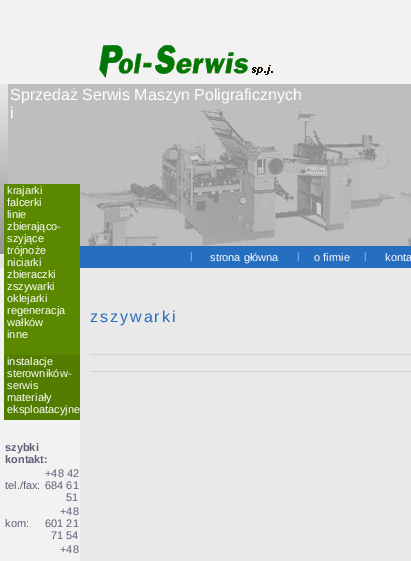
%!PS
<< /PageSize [411 561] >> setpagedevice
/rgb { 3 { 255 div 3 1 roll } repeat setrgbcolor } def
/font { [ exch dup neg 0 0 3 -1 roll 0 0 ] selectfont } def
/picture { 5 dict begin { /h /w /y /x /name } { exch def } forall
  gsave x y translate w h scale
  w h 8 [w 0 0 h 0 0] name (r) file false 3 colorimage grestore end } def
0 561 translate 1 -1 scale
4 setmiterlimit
242 242 242 rgb
0 0 411 561 rectfill
(img/1.rgb) 99 45 174 33 picture
(img/2.rgb) 0 84 4 184 picture
(img/3.rgb) 4 84 4 100 picture
[
  [8 84 72 100 190 190 190]
  [4 184 76 84 90 137 0]
  [80 84 331 22 190 190 190]
] { aload pop rgb rectfill } forall
(img/4.rgb) 80 106 331 140 picture
[
  [80 246 331 22 38 110 191]
  [4 268 76 12 90 137 0]
  [4 280 76 12 90 137 0]
  [4 292 76 12 90 137 0]
  [4 304 76 24 90 137 0]
  [4 328 76 12 90 137 0]
  [4 340 76 15 90 137 0]
  [4 355 76 36 82 125 0]
  [4 391 76 24 82 125 0]
  [4 415 76 5 82 125 0]
  [80 268 331 293 233 233 233]
  [90 354 321 1 211 211 211]
  [90 371 321 1 211 211 211]
] { aload pop rgb rectfill } forall
/LiberationSans-Regular 16 font
255 255 255 rgb
10 100 moveto (Sprzedaż) show
10 118 moveto (i) show
/LiberationSans-Regular 11 font
[
  [(krajarki) 7 194]
  [(falcerki) 7 206]
  [(linie) 7 218]
  [(zbierająco-) 7 230]
  [(szyjące) 7 242]
  [(trójnoże) 7 254]
  [(niciarki) 7 266]
] { aload pop moveto show } forall
/LiberationSans-Regular 16 font
82 100 moveto (Serwis Maszyn Poligraficznych) show
/LiberationSans-Regular 12 font
141 185 233 rgb
190 261 moveto (l) show
/LiberationSans-Regular 11 font
255 255 255 rgb
210 261 moveto (strona główna) show
/LiberationSans-Regular 12 font
141 185 233 rgb
297 261 moveto (l) show
/LiberationSans-Regular 11 font
255 255 255 rgb
314 261 moveto (o firmie) show
/LiberationSans-Regular 12 font
141 185 233 rgb
364 261 moveto (l) show
/LiberationSans-Regular 11 font
255 255 255 rgb
[
  [(konta) 385 261]
  [(zbieraczki) 7 278]
  [(zszywarki) 7 290]
  [(oklejarki) 7 302]
  [(regeneracja) 7 314]
  [(wałków) 7 326]
  [(inne) 7 338]
  [(instalacje) 7 365]
  [(sterowników-) 7 377]
  [(serwis) 7 389]
  [(materiały) 7 401]
  [(eksploatacyjne) 7 413]
] { aload pop moveto show } forall
/LiberationSans-Bold 11 font
97 94 121 rgb
5 451 moveto (szybki) show
5 463 moveto (kontakt:) show
/LiberationSans-Regular 11 font
[
  [(tel./fax:) 5 489]
  [(+48 42) 45 477]
  [(684 61) 45 489]
  [(51) 66 501]
  [(kom:) 5 527]
  [(+48) 60 515]
  [(601 21) 45 527]
  [(71 54) 51 539]
  [(+48) 60 553]
] { aload pop moveto show } forall
/LiberationSans-Regular 16 font
38 110 191 rgb
90 322 moveto 2 0 (zszywarki) ashow
showpage
